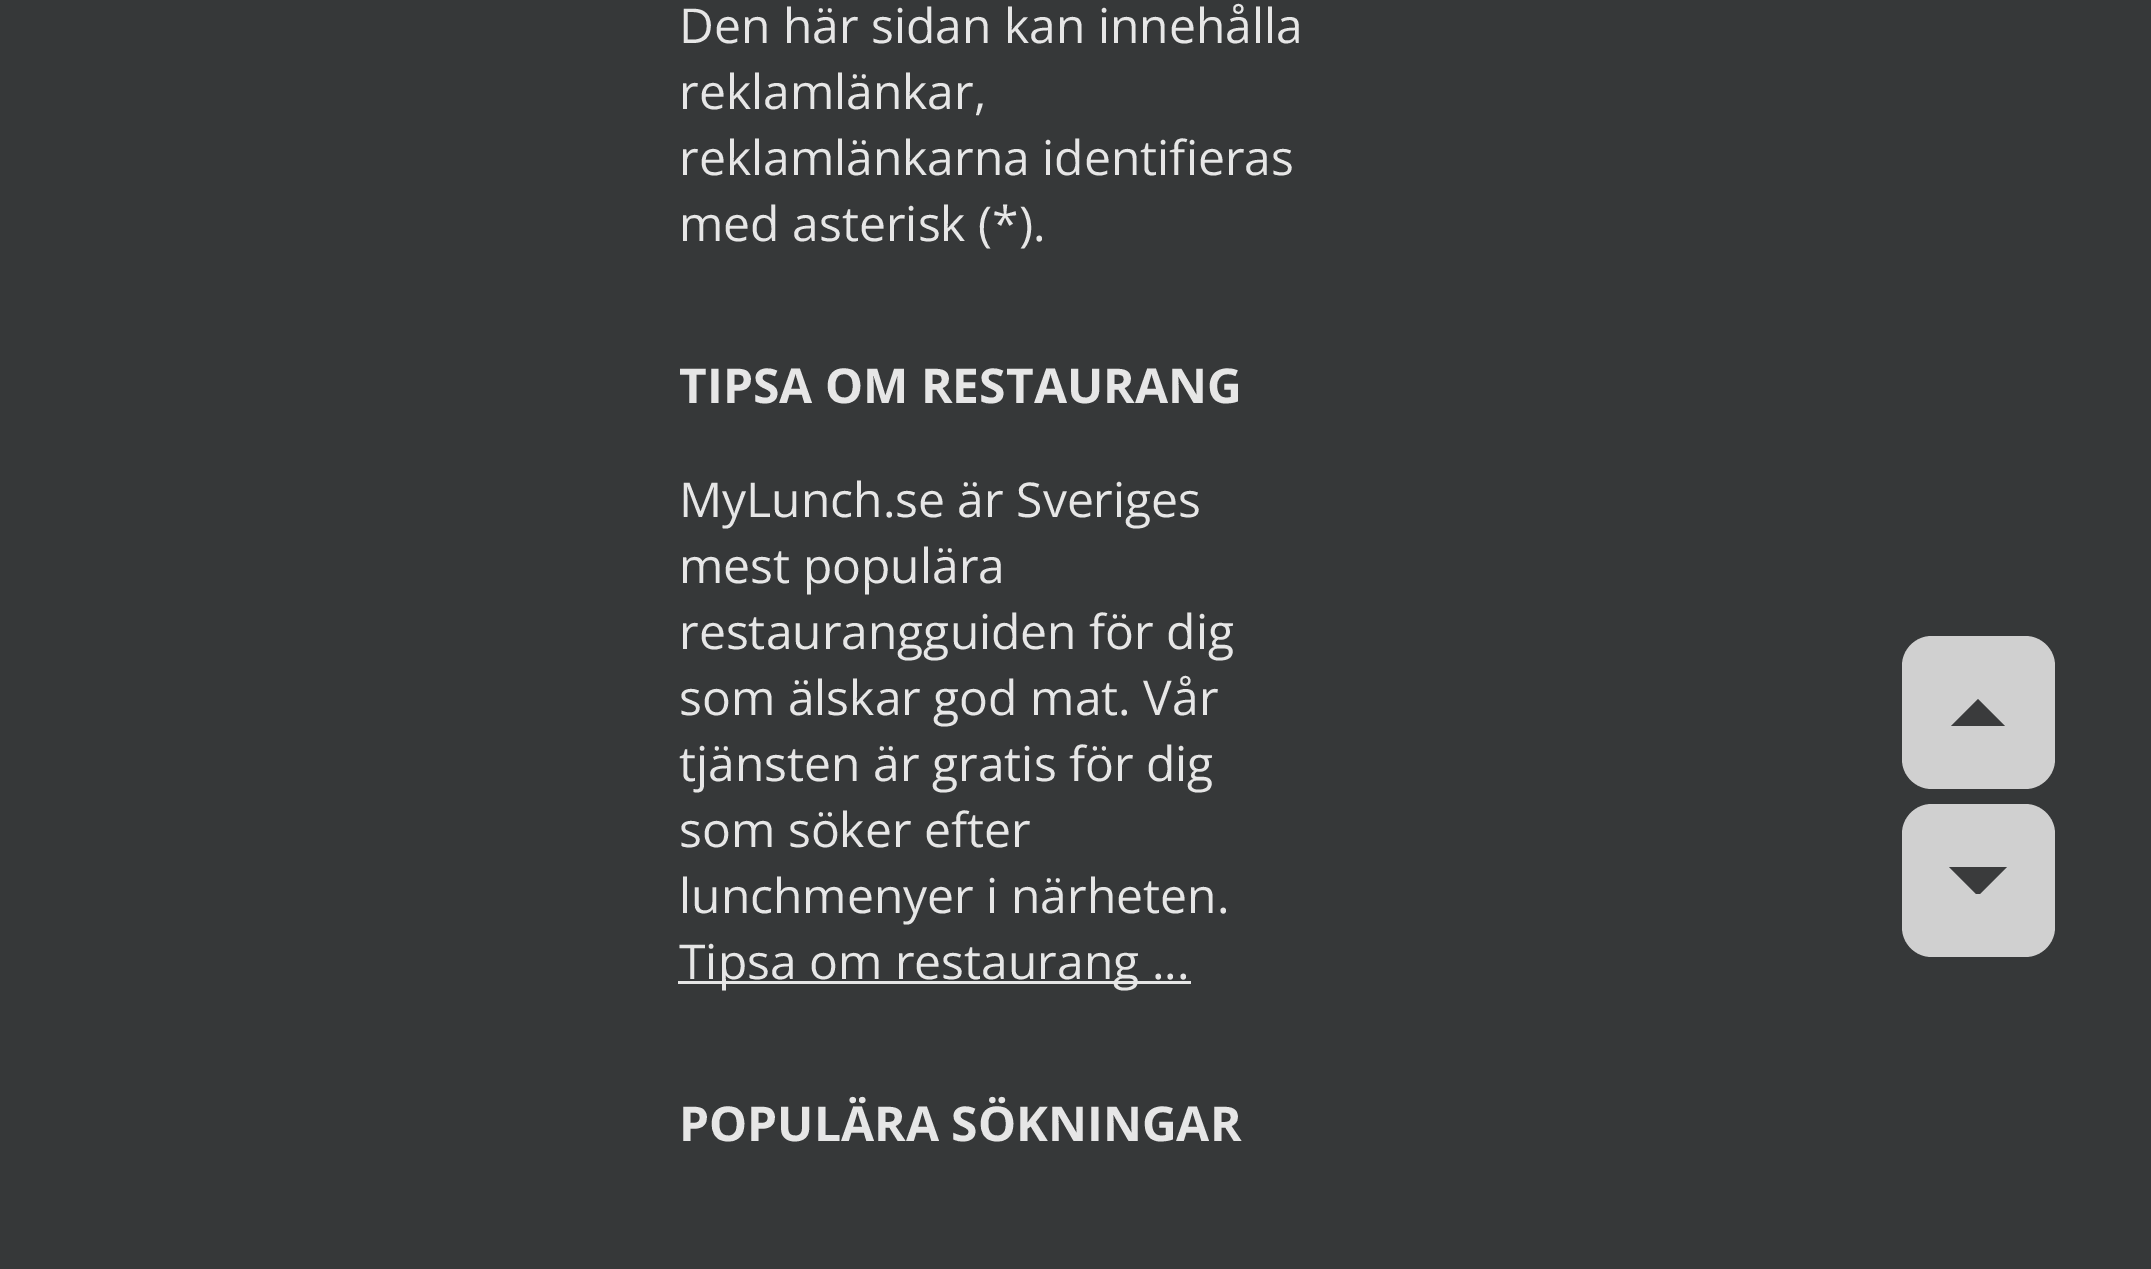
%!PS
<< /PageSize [2151 1269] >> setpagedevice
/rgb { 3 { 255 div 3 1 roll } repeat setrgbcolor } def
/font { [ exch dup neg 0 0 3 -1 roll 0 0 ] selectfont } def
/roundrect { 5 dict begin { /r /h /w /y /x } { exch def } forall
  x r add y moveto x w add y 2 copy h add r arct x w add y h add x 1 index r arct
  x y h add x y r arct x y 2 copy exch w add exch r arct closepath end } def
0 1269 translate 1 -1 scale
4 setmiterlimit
54 56 57 rgb
0 0 2151 1269 rectfill
230 230 230 rgb
678 981 513 3 rectfill
208 208 208 rgb
1902 636 153 153 30 roundrect fill
gsave
1935 699 87 27 rectclip
58 59 60 rgb
2007 728 moveto 1949 728 lineto 1978 699 lineto closepath fill
grestore
1902 804 153 153 30 roundrect fill
gsave
1935 867 87 27 rectclip
58 59 60 rgb
1978 896 moveto 1949 867 lineto 2007 867 lineto closepath fill
grestore
/OpenSans-Regular 48 font
230 230 230 rgb
[
  [(Den här sidan kan innehålla) 679 43]
  [(reklamlänkar,) 679 109]
  [(reklamlänkarna identifieras) 679 175]
  [(med asterisk \(*\).) 679 241]
] { aload pop moveto show } forall
/OpenSans-Bold 48 font
679 403 moveto (TIPSA OM RESTAURANG) show
/OpenSans-Regular 48 font
[
  [(MyLunch.se är Sveriges) 679 517]
  [(mest populära) 679 583]
  [(restaurangguiden för dig) 679 649]
  [(som älskar god mat. Vår) 679 715]
  [(tjänsten är gratis för dig) 679 781]
  [(som söker efter) 679 847]
  [(lunchmenyer i närheten.) 679 913]
  [(Tipsa om restaurang ...) 679 979]
] { aload pop moveto show } forall
/OpenSans-Bold 48 font
679 1141 moveto (POPULÄRA SÖKNINGAR) show
showpage
